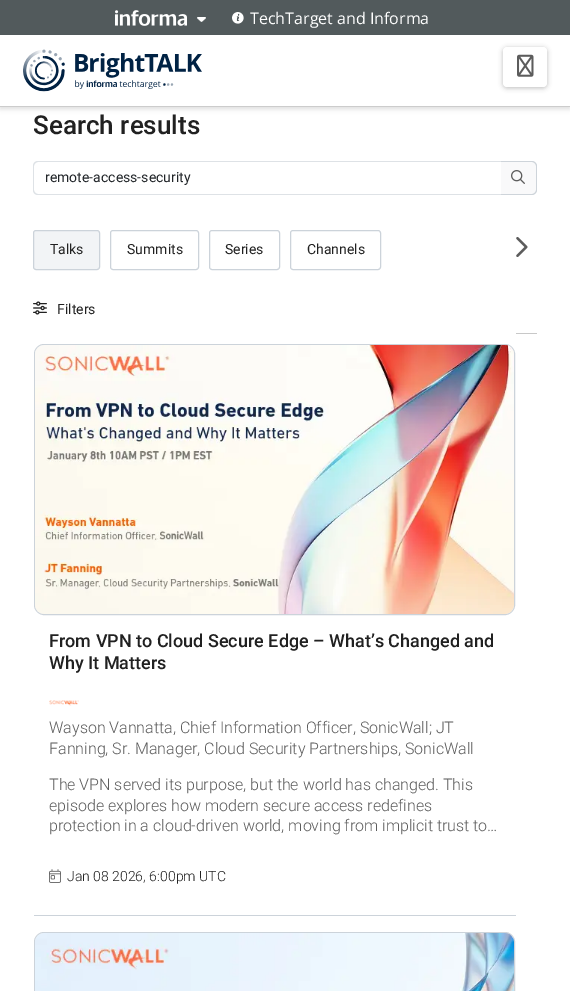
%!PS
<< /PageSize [570 991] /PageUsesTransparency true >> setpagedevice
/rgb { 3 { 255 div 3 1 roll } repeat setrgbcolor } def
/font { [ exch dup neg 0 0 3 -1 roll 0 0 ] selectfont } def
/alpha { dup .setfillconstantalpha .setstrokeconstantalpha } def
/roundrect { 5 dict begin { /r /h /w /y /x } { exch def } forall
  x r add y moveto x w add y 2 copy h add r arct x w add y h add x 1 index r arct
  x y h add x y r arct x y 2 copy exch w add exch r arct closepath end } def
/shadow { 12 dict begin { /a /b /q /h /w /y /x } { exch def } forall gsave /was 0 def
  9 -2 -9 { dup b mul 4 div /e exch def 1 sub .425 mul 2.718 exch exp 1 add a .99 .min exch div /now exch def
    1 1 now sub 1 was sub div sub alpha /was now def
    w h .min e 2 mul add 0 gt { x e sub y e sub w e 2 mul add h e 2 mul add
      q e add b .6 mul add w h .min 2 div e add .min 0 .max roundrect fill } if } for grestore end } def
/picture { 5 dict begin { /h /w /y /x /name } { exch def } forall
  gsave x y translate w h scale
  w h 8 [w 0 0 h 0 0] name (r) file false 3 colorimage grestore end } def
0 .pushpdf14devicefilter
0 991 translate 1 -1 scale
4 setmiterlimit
255 255 255 rgb
0 0 570 991 rectfill
82 90 92 rgb
0 0 570 35 rectfill
(img/1.rgb) 115 10 72 16 picture
(img/2.rgb) 197 17 9 5 picture
(img/3.rgb) 232 12 12 12 picture
gsave
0 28 moveto 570 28 lineto 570 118 lineto 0 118 lineto closepath 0 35 moveto 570 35 lineto 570 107 lineto 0 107 lineto closepath eoclip newpath
0 0 0 rgb
0 37 570 72 0 2.5 0.13 shadow
grestore
204 204 204 rgb
0 106 570 1 rectfill
(img/4.rgb) 23 49 179 43 picture
0 0 0 rgb
503 48 44 40 4 2.5 0.25 shadow
255 255 255 rgb
503 47 44 40 4 roundrect fill
(img/5.rgb) 517 54 17 23 picture
222 226 230 rgb
38 161 moveto 501 161 lineto 501 195 lineto 38 195 lineto 35 195 33 193 33 190 curveto 33 166 lineto 33 163 35 161 38 161 curveto closepath 38 162 moveto 501 162 lineto 501 194 lineto 38 194 lineto 36 194 34 192 34 190 curveto 34 166 lineto 34 164 36 162 38 162 curveto closepath eofill
249 249 250 rgb
501 161 moveto 532 161 lineto 535 161 537 163 537 166 curveto 537 190 lineto 537 193 535 195 532 195 curveto 501 195 lineto closepath fill
206 212 218 rgb
501 161 moveto 532 161 lineto 534.5 161 537 163.5 537 166 curveto 537 190 lineto 537 192.5 534.5 195 532 195 curveto 501 195 lineto closepath 501 162 moveto 532 162 lineto 534 162 536 164 536 166 curveto 536 190 lineto 536 192 534 194 532 194 curveto 501 194 lineto closepath eofill
(img/6.rgb) 511 170 14 14 picture
242 244 246 rgb
33.5 230.5 66 39 2.5 roundrect gsave fill grestore
204 211 218 rgb
stroke
110.5 230.5 88 39 2.5 roundrect stroke
209.5 230.5 70 39 2.5 roundrect stroke
290.5 230.5 90 39 2.5 roundrect stroke
(img/7.rgb) 516 237 12 20 picture
(img/8.rgb) 33 301 14 14 picture
[
  [516 333 21 1 200 200 200]
  [33 915 483 1 204 211 218]
  [33 915 1 1 255 255 255]
] { aload pop rgb rectfill } forall
237 240 242 rgb
34.5 344.5 480 270 9.5 roundrect gsave fill grestore
204 211 218 rgb
stroke
(img/9.rgb) 35 345 479 269 picture
(img/10.rgb) 49 700 30 6 picture
(img/11.rgb) 49 869 12 14 picture
237 240 242 rgb
34.5 932.5 480 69 9.5 roundrect gsave fill grestore
204 211 218 rgb
stroke
(img/12.rgb) 35 933 479 58 picture
/OpenSans-Regular 16 font
255 255 255 rgb
250 24 moveto (TechTarget and Informa) show
/Roboto-Medium 26 font
33 33 33 rgb
33 134 moveto (Search results) show
/Roboto-Regular 14 font
33 37 41 rgb
45 182 moveto (remote-access-security) show
33 33 33 rgb
[
  [(Talks) 50 254]
  [(Summits) 127 254]
  [(Series) 225 254]
  [(Channels) 307 254]
  [(Filters) 57 314]
] { aload pop moveto show } forall
/Roboto-Medium 18 font
49 647 moveto (From VPN to Cloud Secure Edge – What’s Changed and) show
49 669 moveto (Why It Matters) show
/Roboto-Light 16 font
92 92 92 rgb
[
  [(Wayson Vannatta, Chief Information Officer, SonicWall; JT) 49 733]
  [(Fanning, Sr. Manager, Cloud Security Partnerships, SonicWall) 49 754]
  [(The VPN served its purpose, but the world has changed. This) 49 790]
  [(episode explores how modern secure access redefines) 49 811]
  [(protection in a cloud-driven world, moving from implicit trust to…) 49 831]
] { aload pop moveto show } forall
/Roboto-Light 14 font
33 33 33 rgb
67 881 moveto (Jan 08 2026, 6:00pm UTC) show
.poppdf14devicefilter showpage
